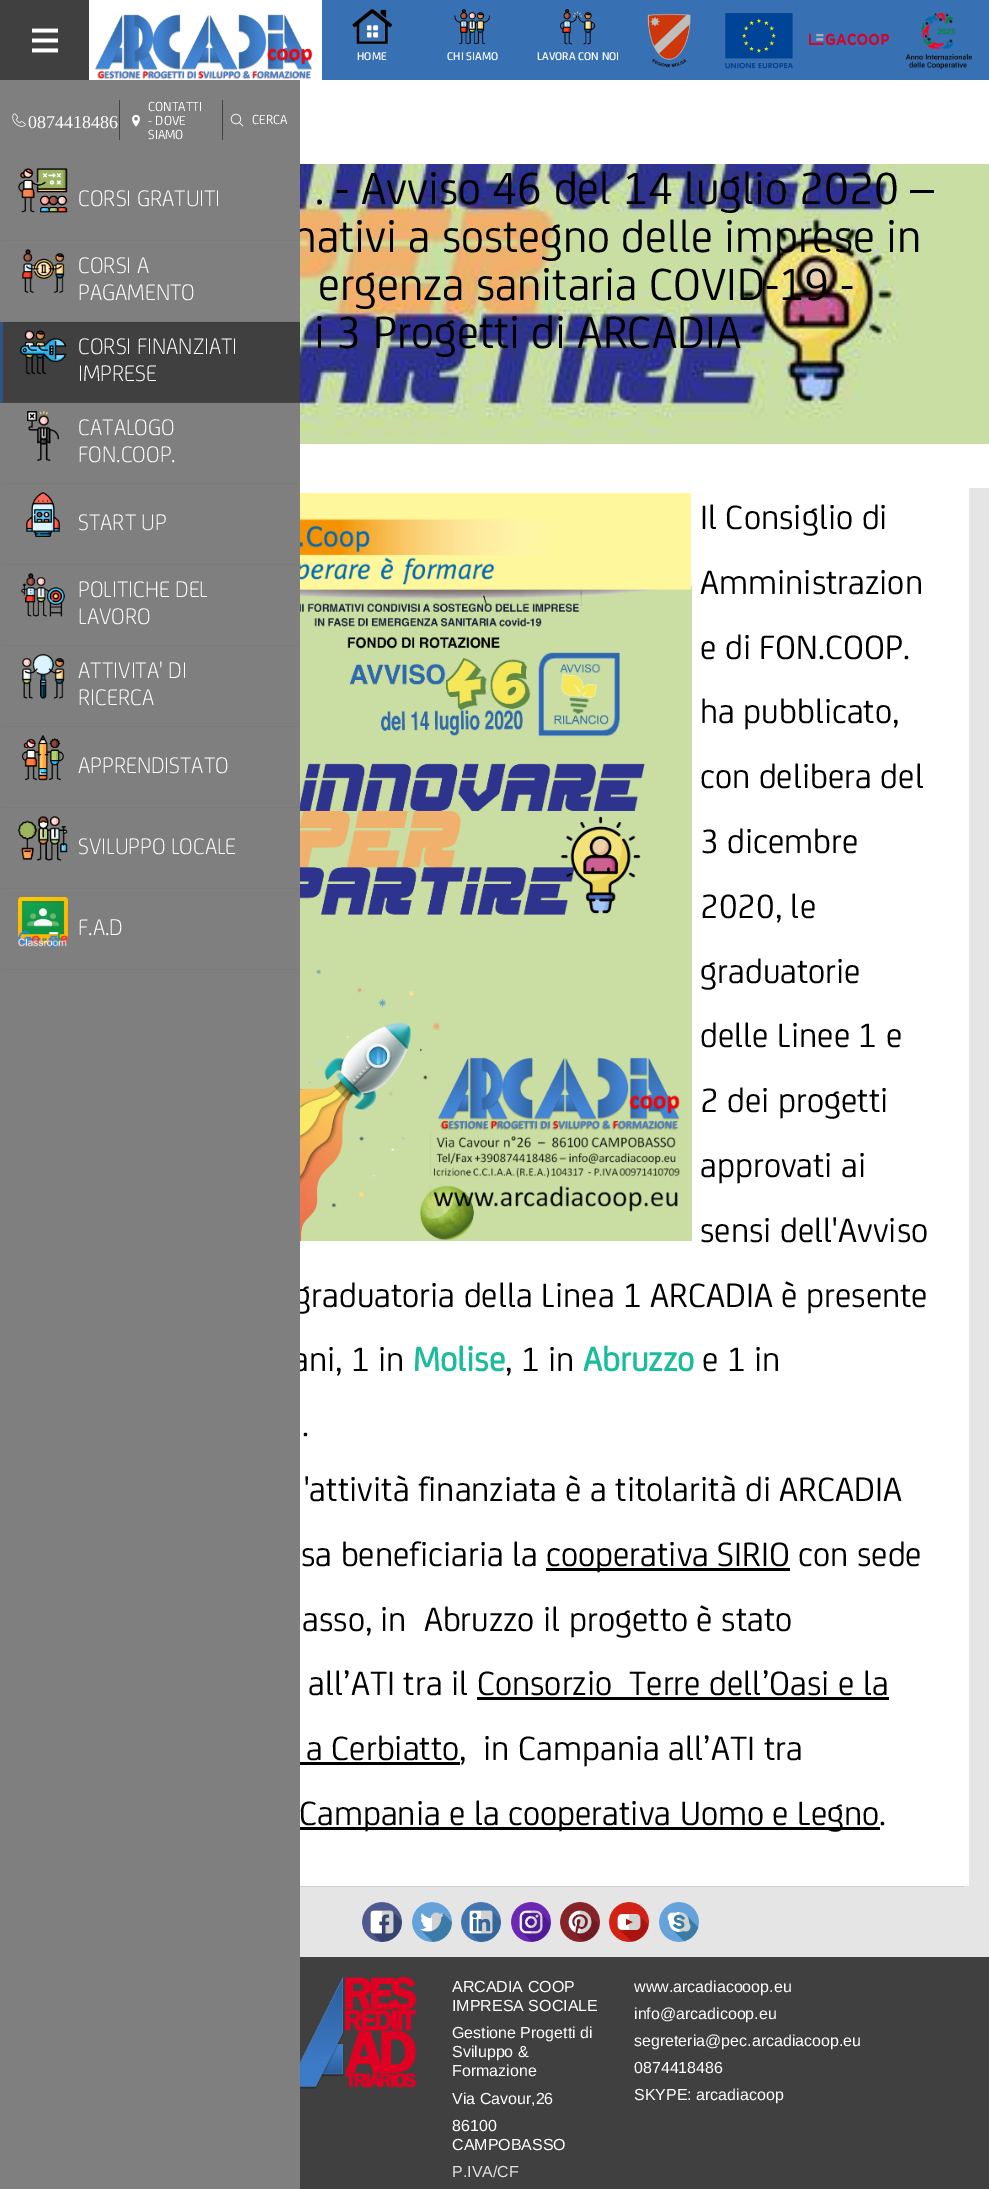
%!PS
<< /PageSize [989 2189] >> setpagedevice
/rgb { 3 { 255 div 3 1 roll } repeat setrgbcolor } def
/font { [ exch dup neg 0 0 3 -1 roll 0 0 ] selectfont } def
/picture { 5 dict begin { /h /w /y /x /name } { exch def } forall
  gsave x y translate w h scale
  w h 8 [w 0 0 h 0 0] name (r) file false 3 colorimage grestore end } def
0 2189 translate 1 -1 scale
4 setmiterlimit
255 255 255 rgb
0 0 989 2189 rectfill
56 112 180 rgb
322 0 667 80 rectfill
64 64 64 rgb
0 0 89 80 rectfill
(img/1.rgb) 32 28 26 25 picture
(img/2.rgb) 95 14 218 66 picture
(img/3.rgb) 352 9 40 36 picture
(img/4.rgb) 454 9 36 36 picture
(img/5.rgb) 560 9 36 36 picture
(img/6.rgb) 647 13 44 55 picture
(img/7.rgb) 725 13 68 56 picture
(img/8.rgb) 809 33 80 13 picture
(img/9.rgb) 905 13 67 56 picture
[
  [969 488 20 1398 229 229 229]
  [0 80 300 80 127 127 127]
  [119 100 1 40 68 68 68]
] { aload pop rgb rectfill } forall
(img/10.rgb) 12 113 14 14 picture
(img/11.rgb) 132 114 8 13 picture
222 100 1 40 rectfill
(img/12.rgb) 230 113 14 14 picture
(img/23.rgb) 300 164 689 280 picture
(img/24.rgb) 300 493 392 748 picture
[
  [546 1568 244 3 0 0 0]
  [477 1697 412 3 0 0 0]
  [300 1762 160 3 0 0 0]
  [300 1827 580 3 0 0 0]
  [300 1957 689 232 64 64 64]
  [300 1886 689 71 229 229 229]
  [300 1886 664 1 206 206 206]
] { aload pop rgb rectfill } forall
(img/25.rgb) 362 1902 40 40 picture
(img/26.rgb) 412 1902 40 40 picture
(img/27.rgb) 461 1902 40 40 picture
(img/28.rgb) 511 1902 40 40 picture
(img/29.rgb) 560 1902 40 40 picture
(img/30.rgb) 609 1902 40 40 picture
(img/31.rgb) 659 1902 40 40 picture
(img/32.rgb) 300 1977 116 112 picture
/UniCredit-Medium 12 font
255 255 255 rgb
[
  [(HOME) 357 60]
  [(CHI SIAMO) 447 60]
  [(LAVORA CON NOI) 537 60]
] { aload pop moveto show } forall
/LiberationSerif-Regular 18 font
28 128 moveto (0874418486) show
/UniCredit-Regular 14 font
[
  [(CONTATTI) 148 111]
  [(- DOVE) 148 125]
  [(SIAMO) 148 139]
  [(CERCA) 252 124]
] { aload pop moveto show } forall
/UniCredit-Regular 48 font
0 0 0 rgb
[
  [(. - Avviso 46 del 14 luglio 2020 –) 315 204]
  [(mativi a sostegno delle imprese in) 278 252]
  [(ergenza sanitaria COVID-19 -) 318 300]
  [(i 3 Progetti di ARCADIA) 314 348]
] { aload pop moveto show } forall
/UniCredit-Regular 36 font
[
  [(Il Consiglio di) 700 529]
  [(Amministrazion) 700 594]
  [(e di FON.COOP.) 700 659]
  [(ha pubblicato,) 700 723]
  [(con delibera del) 700 788]
  [(3 dicembre) 700 853]
  [(2020, le) 700 918]
  [(graduatorie) 700 983]
  [(delle Linee 1 e) 700 1047]
  [(2 dei progetti) 700 1112]
  [(approvati ai) 700 1177]
  [(sensi dell'Avviso) 700 1242]
  [(graduatoria della Linea 1 ARCADIA è presente) 294 1307]
  [(ani, 1 in) 292 1371]
] { aload pop moveto show } forall
127 127 127 rgb
0 160 300 2029 rectfill
/UniCredit-Light 24 font
255 255 255 rgb
78 935 moveto (F.A.D) show
(img/22.rgb) 18 897 50 50 picture
123 123 123 rgb
300 970 moveto 0 970 lineto 3 969 lineto 300 969 lineto closepath fill
255 255 255 rgb
78 854 moveto (SVILUPPO LOCALE) show
(img/21.rgb) 18 816 50 45 picture
123 123 123 rgb
300 889 moveto 0 889 lineto 3 888 lineto 300 888 lineto closepath fill
255 255 255 rgb
78 773 moveto (APPRENDISTATO) show
(img/20.rgb) 22 735 42 46 picture
123 123 123 rgb
300 808 moveto 0 808 lineto 3 807 lineto 300 807 lineto closepath fill
255 255 255 rgb
78 705 moveto (RICERCA) show
78 678 moveto (ATTIVITA' DI) show
(img/19.rgb) 22 654 43 45 picture
123 123 123 rgb
300 727 moveto 0 727 lineto 3 726 lineto 300 726 lineto closepath fill
255 255 255 rgb
78 624 moveto (LAVORO) show
78 597 moveto (POLITICHE DEL) show
(img/18.rgb) 21 573 44 44 picture
123 123 123 rgb
300 646 moveto 0 646 lineto 3 645 lineto 300 645 lineto closepath fill
255 255 255 rgb
78 530 moveto (START UP) show
(img/17.rgb) 26 492 34 45 picture
123 123 123 rgb
300 565 moveto 0 565 lineto 3 564 lineto 300 564 lineto closepath fill
255 255 255 rgb
78 462 moveto (FON.COOP.) show
78 435 moveto (CATALOGO) show
(img/16.rgb) 27 411 32 50 picture
123 123 123 rgb
300 484 moveto 0 484 lineto 3 483 lineto 300 483 lineto closepath fill
64 64 64 rgb
0 322 300 81 rectfill
255 255 255 rgb
78 381 moveto (IMPRESE) show
78 354 moveto (CORSI FINANZIATI) show
(img/15.rgb) 19 330 48 45 picture
70 70 70 rgb
300 403 moveto 0 403 lineto 3 402 lineto 300 402 lineto closepath fill
44 86 136 rgb
0 403 moveto 0 322 lineto 3 322 lineto 3 402 lineto closepath fill
255 255 255 rgb
78 300 moveto (PAGAMENTO) show
78 273 moveto (CORSI A) show
(img/14.rgb) 22 249 43 44 picture
123 123 123 rgb
300 322 moveto 0 322 lineto 3 321 lineto 300 321 lineto closepath fill
255 255 255 rgb
78 206 moveto (CORSI GRATUITI) show
(img/13.rgb) 18 168 50 45 picture
123 123 123 rgb
300 241 moveto 0 241 lineto 3 240 lineto 300 240 lineto closepath fill
/UniCredit-Bold 36 font
26 188 156 rgb
413 1371 moveto (Molise) show
/UniCredit-Regular 36 font
0 0 0 rgb
505 1371 moveto (, 1 in) show
/UniCredit-Bold 36 font
26 188 156 rgb
583 1371 moveto (Abruzzo) show
/UniCredit-Regular 36 font
0 0 0 rgb
[
  [(e 1 in) 702 1371]
  [(.) 302 1436]
  [('attività finanziata è a titolarità di ARCADIA) 304 1501]
  [(sa beneficiaria la) 301 1566]
  [(cooperativa SIRIO con sede) 546 1566]
  [(asso, in  Abruzzo il progetto è stato) 302 1631]
  [(all’ATI tra il Consorzio  Terre dell’Oasi e la) 308 1695]
  [(a Cerbiatto,  in Campania all’ATI tra) 306 1760]
  [(Campania e la cooperativa Uomo e Legno.) 299 1825]
] { aload pop moveto show } forall
/LiberationSans-Regular 16 font
255 255 255 rgb
[
  [(ARCADIA COOP) 452 1992]
  [(IMPRESA SOCIALE) 452 2011]
  [(Gestione Progetti di) 452 2038]
  [(Sviluppo &) 452 2057]
  [(Formazione) 452 2076]
  [(Via Cavour,26) 452 2104]
  [(86100) 452 2131]
  [(CAMPOBASSO) 452 2150]
] { aload pop moveto show } forall
224 224 224 rgb
452 2177 moveto (P.IVA/CF) show
255 255 255 rgb
[
  [(www.arcadiacooop.eu) 634 1992]
  [(info@arcadicoop.eu) 634 2019]
  [(segreteria@pec.arcadiacoop.eu) 634 2046]
  [(0874418486) 634 2073]
  [(SKYPE: arcadiacoop) 634 2100]
] { aload pop moveto show } forall
showpage
